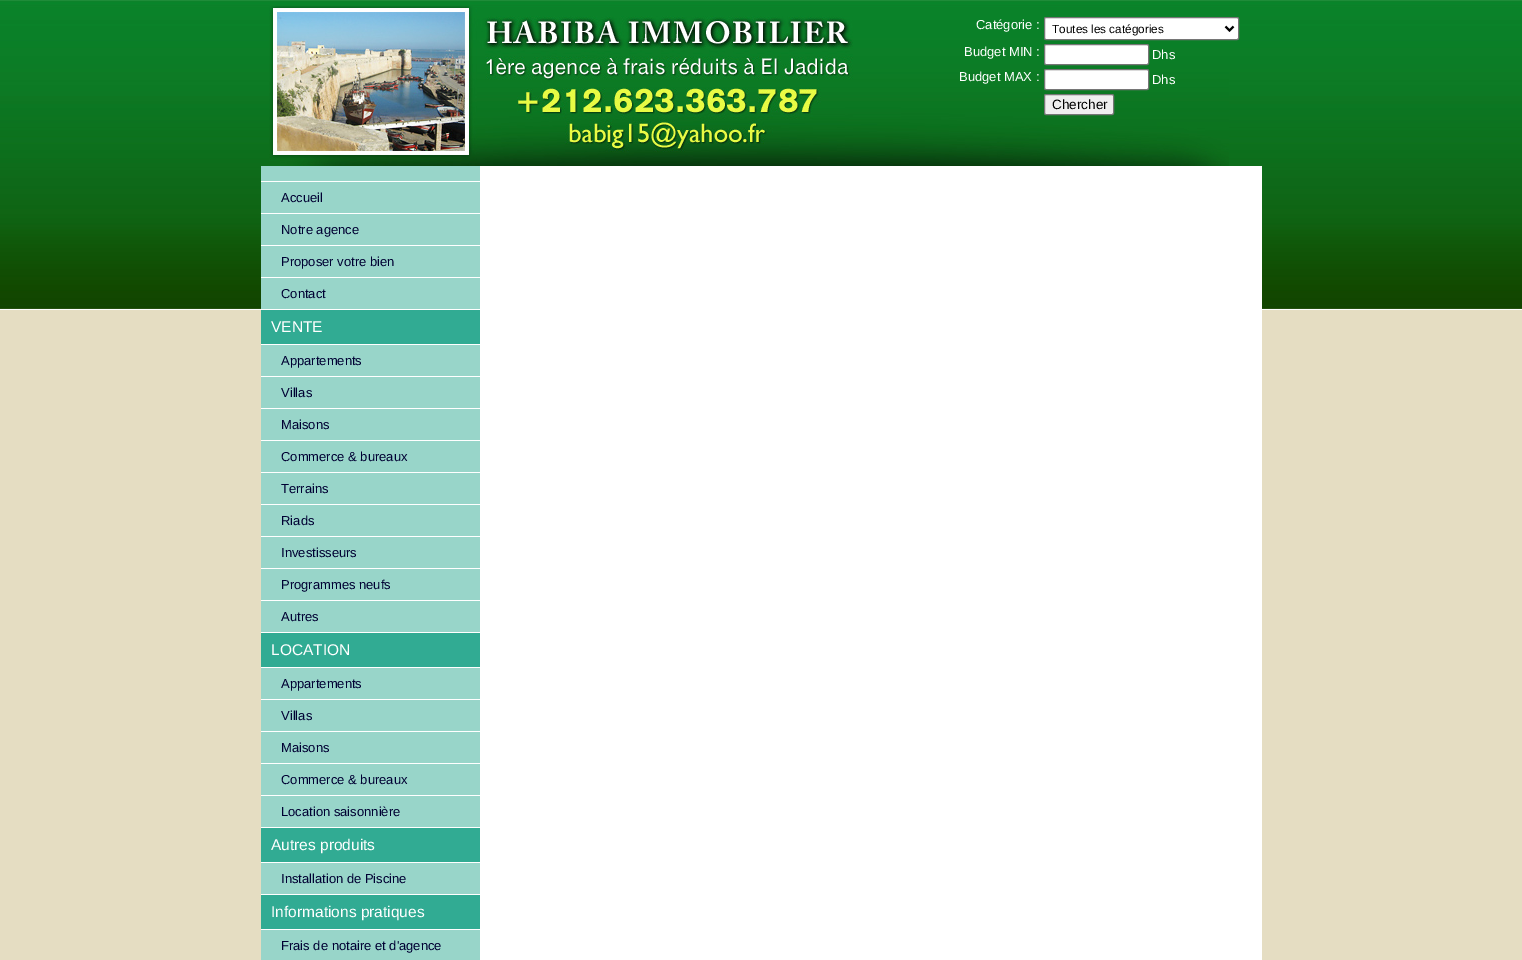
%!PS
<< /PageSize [1522 960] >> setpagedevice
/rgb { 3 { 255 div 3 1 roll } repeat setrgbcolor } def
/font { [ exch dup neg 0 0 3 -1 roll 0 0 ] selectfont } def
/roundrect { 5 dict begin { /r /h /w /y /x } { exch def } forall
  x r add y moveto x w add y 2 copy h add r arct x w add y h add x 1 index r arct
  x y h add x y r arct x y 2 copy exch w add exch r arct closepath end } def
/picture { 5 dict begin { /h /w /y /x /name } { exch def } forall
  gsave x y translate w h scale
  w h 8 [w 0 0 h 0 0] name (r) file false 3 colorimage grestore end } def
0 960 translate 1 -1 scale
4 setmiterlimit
229 221 194 rgb
0 0 1522 960 rectfill
(img/1.rgb) 0 0 1522 310 picture
(img/2.rgb) 269 6 960 160 picture
255 255 255 rgb
1044.5 17.5 194 22 1.5 roundrect gsave fill grestore
118 118 118 rgb
stroke
0 0 0 rgb
2 setlinewidth
1225.5 26.5 moveto 1229.5 30.5 lineto 1233.5 26.5 lineto stroke
255 255 255 rgb
1044.5 44.5 104 20 1.5 roundrect gsave fill grestore
118 118 118 rgb
1 setlinewidth
stroke
255 255 255 rgb
1044.5 69.5 104 20 1.5 roundrect gsave fill grestore
118 118 118 rgb
stroke
239 239 239 rgb
1044.5 94.5 69 20 1.5 roundrect gsave fill grestore
118 118 118 rgb
stroke
[
  [261 166 219 794 152 213 201]
  [261 181 219 1 255 255 255]
  [261 213 219 1 255 255 255]
  [261 245 219 1 255 255 255]
  [261 277 219 1 255 255 255]
  [261 309 219 1 255 255 255]
  [261 344 219 1 255 255 255]
  [261 310 219 34 49 171 147]
  [261 376 219 1 255 255 255]
  [261 408 219 1 255 255 255]
  [261 440 219 1 255 255 255]
  [261 472 219 1 255 255 255]
  [261 504 219 1 255 255 255]
  [261 536 219 1 255 255 255]
  [261 568 219 1 255 255 255]
  [261 600 219 1 255 255 255]
  [261 632 219 1 255 255 255]
  [261 667 219 1 255 255 255]
  [261 633 219 34 49 171 147]
  [261 699 219 1 255 255 255]
  [261 731 219 1 255 255 255]
  [261 763 219 1 255 255 255]
  [261 795 219 1 255 255 255]
  [261 827 219 1 255 255 255]
  [261 862 219 1 255 255 255]
  [261 828 219 34 49 171 147]
  [261 894 219 1 255 255 255]
  [261 929 219 1 255 255 255]
  [261 895 219 34 49 171 147]
  [480 166 782 794 255 255 255]
] { aload pop rgb rectfill } forall
/LiberationSans-Regular 13 font
976 29 moveto (Catégorie :) show
/LiberationSans-Regular 11.75 font
0 0 0 rgb
1052 33 moveto (Toutes les catégories) show
/LiberationSans-Regular 13 font
255 255 255 rgb
[
  [(Budget MIN :) 964 56]
  [(Dhs) 1152 59]
  [(Budget MAX :) 959 81]
  [(Dhs) 1152 84]
] { aload pop moveto show } forall
/LiberationSans-Regular 13.5 font
0 0 0 rgb
1052 109 moveto (Chercher) show
/LiberationSans-Regular 13 font
0 0 51 rgb
[
  [(Accueil) 281 202]
  [(Notre agence) 281 234]
  [(Proposer votre bien) 281 266]
  [(Contact) 281 298]
] { aload pop moveto show } forall
/LiberationSans-Regular 15.5 font
255 255 255 rgb
271 332 moveto (VENTE) show
/LiberationSans-Regular 13 font
0 0 51 rgb
[
  [(Appartements) 281 365]
  [(Villas) 281 397]
  [(Maisons) 281 429]
  [(Commerce & bureaux) 281 461]
  [(Terrains) 281 493]
  [(Riads) 281 525]
  [(Investisseurs) 281 557]
  [(Programmes neufs) 281 589]
  [(Autres) 281 621]
] { aload pop moveto show } forall
/LiberationSans-Regular 15.5 font
255 255 255 rgb
271 655 moveto (LOCATION) show
/LiberationSans-Regular 13 font
0 0 51 rgb
[
  [(Appartements) 281 688]
  [(Villas) 281 720]
  [(Maisons) 281 752]
  [(Commerce & bureaux) 281 784]
  [(Location saisonnière) 281 816]
] { aload pop moveto show } forall
/LiberationSans-Regular 15.5 font
255 255 255 rgb
271 850 moveto (Autres produits) show
/LiberationSans-Regular 13 font
0 0 51 rgb
281 883 moveto (Installation de Piscine) show
/LiberationSans-Regular 15.5 font
255 255 255 rgb
271 917 moveto (Informations pratiques) show
/LiberationSans-Regular 13 font
0 0 51 rgb
281 950 moveto (Frais de notaire et d'agence) show
showpage
